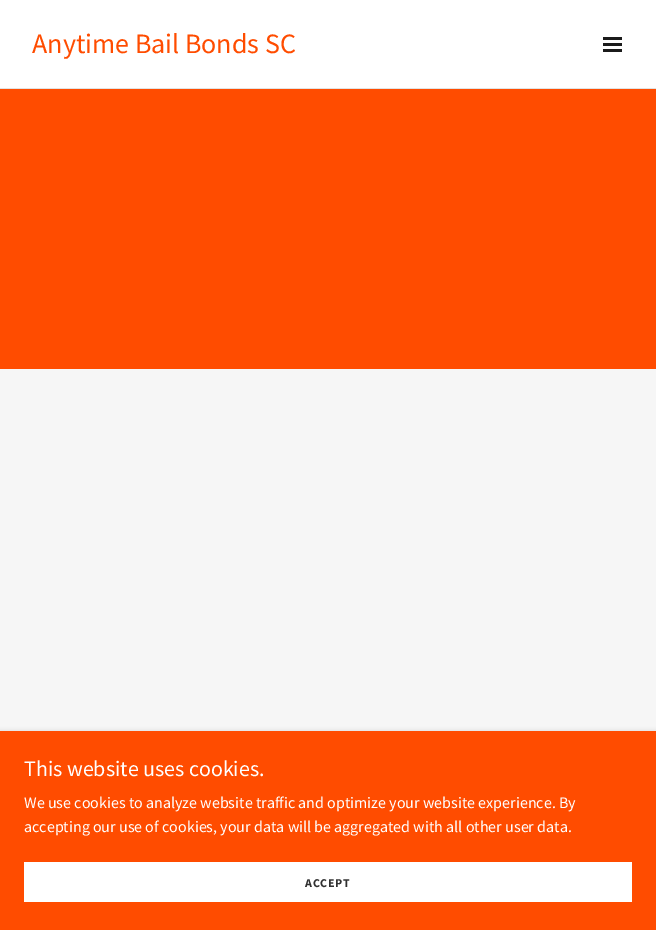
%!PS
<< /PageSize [656 930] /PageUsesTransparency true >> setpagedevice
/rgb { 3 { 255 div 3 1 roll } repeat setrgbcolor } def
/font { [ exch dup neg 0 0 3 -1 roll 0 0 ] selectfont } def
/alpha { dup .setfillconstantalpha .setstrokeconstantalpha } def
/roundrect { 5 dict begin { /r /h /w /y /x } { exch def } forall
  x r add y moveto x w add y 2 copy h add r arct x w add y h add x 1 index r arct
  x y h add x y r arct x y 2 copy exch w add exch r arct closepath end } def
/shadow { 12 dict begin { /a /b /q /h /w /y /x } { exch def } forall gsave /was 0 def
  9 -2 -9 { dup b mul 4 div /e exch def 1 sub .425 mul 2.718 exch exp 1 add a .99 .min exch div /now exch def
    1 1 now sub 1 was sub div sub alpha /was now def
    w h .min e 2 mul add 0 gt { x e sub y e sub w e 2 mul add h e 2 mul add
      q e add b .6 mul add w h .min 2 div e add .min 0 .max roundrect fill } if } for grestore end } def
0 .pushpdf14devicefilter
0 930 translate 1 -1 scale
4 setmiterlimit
255 76 0 rgb
0 0 656 930 rectfill
[
  [0 0 656 88 255 255 255]
  [603 37 19 3 27 27 27]
  [603 43 19 3 27 27 27]
  [603 49 19 3 27 27 27]
  [0 88 656 1 226 226 226]
  [0 369 656 362 246 246 246]
] { aload pop rgb rectfill } forall
0 0 0 rgb
0 733 656 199 0 3 0.3 shadow
255 76 0 rgb
0 731 656 199 rectfill
255 255 255 rgb
24 862 608 40 rectfill
/SourceSansPro-Regular 28 font
255 76 0 rgb
32 53 moveto (Anytime Bail Bonds SC) show
/SourceSansPro-Regular 22 font
255 255 255 rgb
24 776 moveto (This website uses cookies.) show
/SourceSansPro-Regular 16 font
24 808 moveto (We use cookies to analyze website traffic and optimize your website experience. By) show
24 832 moveto (accepting our use of cookies, your data will be aggregated with all other user data.) show
/SourceSansPro-Bold 12 font
48 48 48 rgb
305 887 moveto 0.75 0 (ACCEPT) ashow
.poppdf14devicefilter showpage
